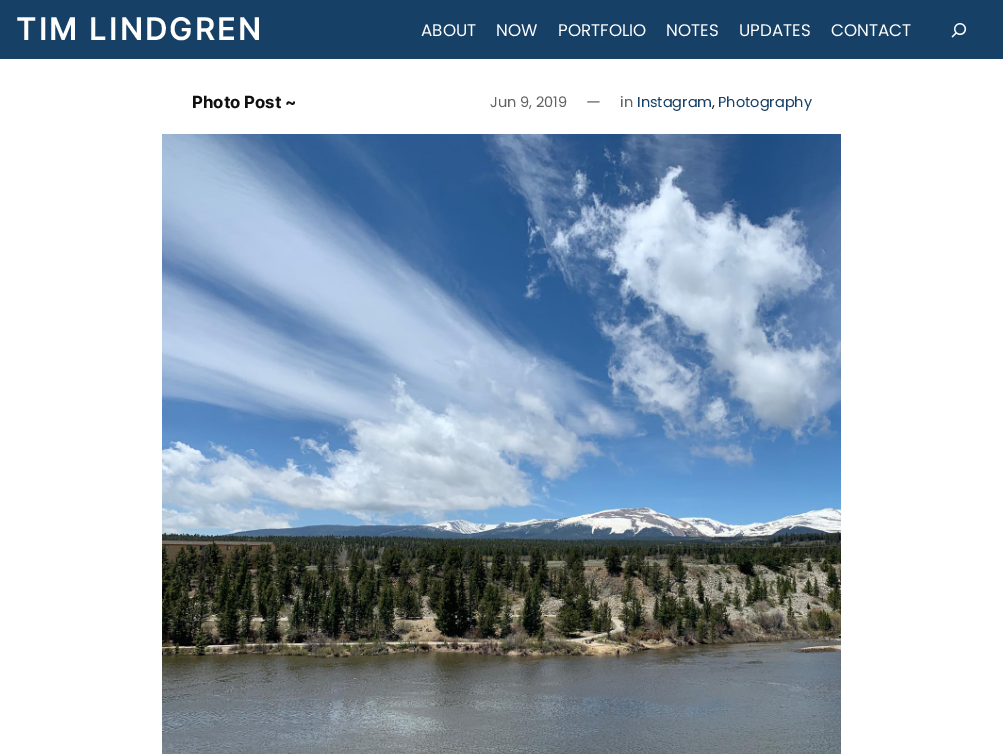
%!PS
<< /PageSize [1003 754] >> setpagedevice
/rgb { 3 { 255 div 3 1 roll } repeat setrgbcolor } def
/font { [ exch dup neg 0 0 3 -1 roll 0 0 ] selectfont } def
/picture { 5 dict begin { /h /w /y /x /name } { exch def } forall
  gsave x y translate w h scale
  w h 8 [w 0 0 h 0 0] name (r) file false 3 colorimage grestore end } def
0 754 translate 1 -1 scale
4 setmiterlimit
255 255 255 rgb
0 0 1003 754 rectfill
23 64 102 rgb
0 0 1003 59 rectfill
(img/1.rgb) 951 23 16 15 picture
(img/2.rgb) 162 134 679 620 picture
/Inter-SemiBold 31.25 font
255 255 255 rgb
16 40 moveto 2 0 (TIM LINDGREN) ashow
/Poppins-Regular 16.75 font
[
  [(ABOUT) 421 36]
  [(NOW) 496 36]
  [(PORTFOLIO) 558 36]
  [(NOTES) 666 36]
  [(UPDATES) 739 36]
  [(CONTACT) 831 36]
] { aload pop moveto show } forall
/Inter-Bold 16.75 font
17 17 17 rgb
192 108 moveto (Photo Post ~) show
/Poppins-Regular 14.5 font
99 99 99 rgb
490 107 moveto (Jun 9, 2019) show
/Poppins-Regular 16.75 font
586 108 moveto (—) show
/Poppins-Regular 14.5 font
620 107 moveto (in) show
23 64 102 rgb
637 107 moveto (Instagram) show
17 17 17 rgb
712 107 moveto (,) show
23 64 102 rgb
718 107 moveto (Photography) show
showpage
